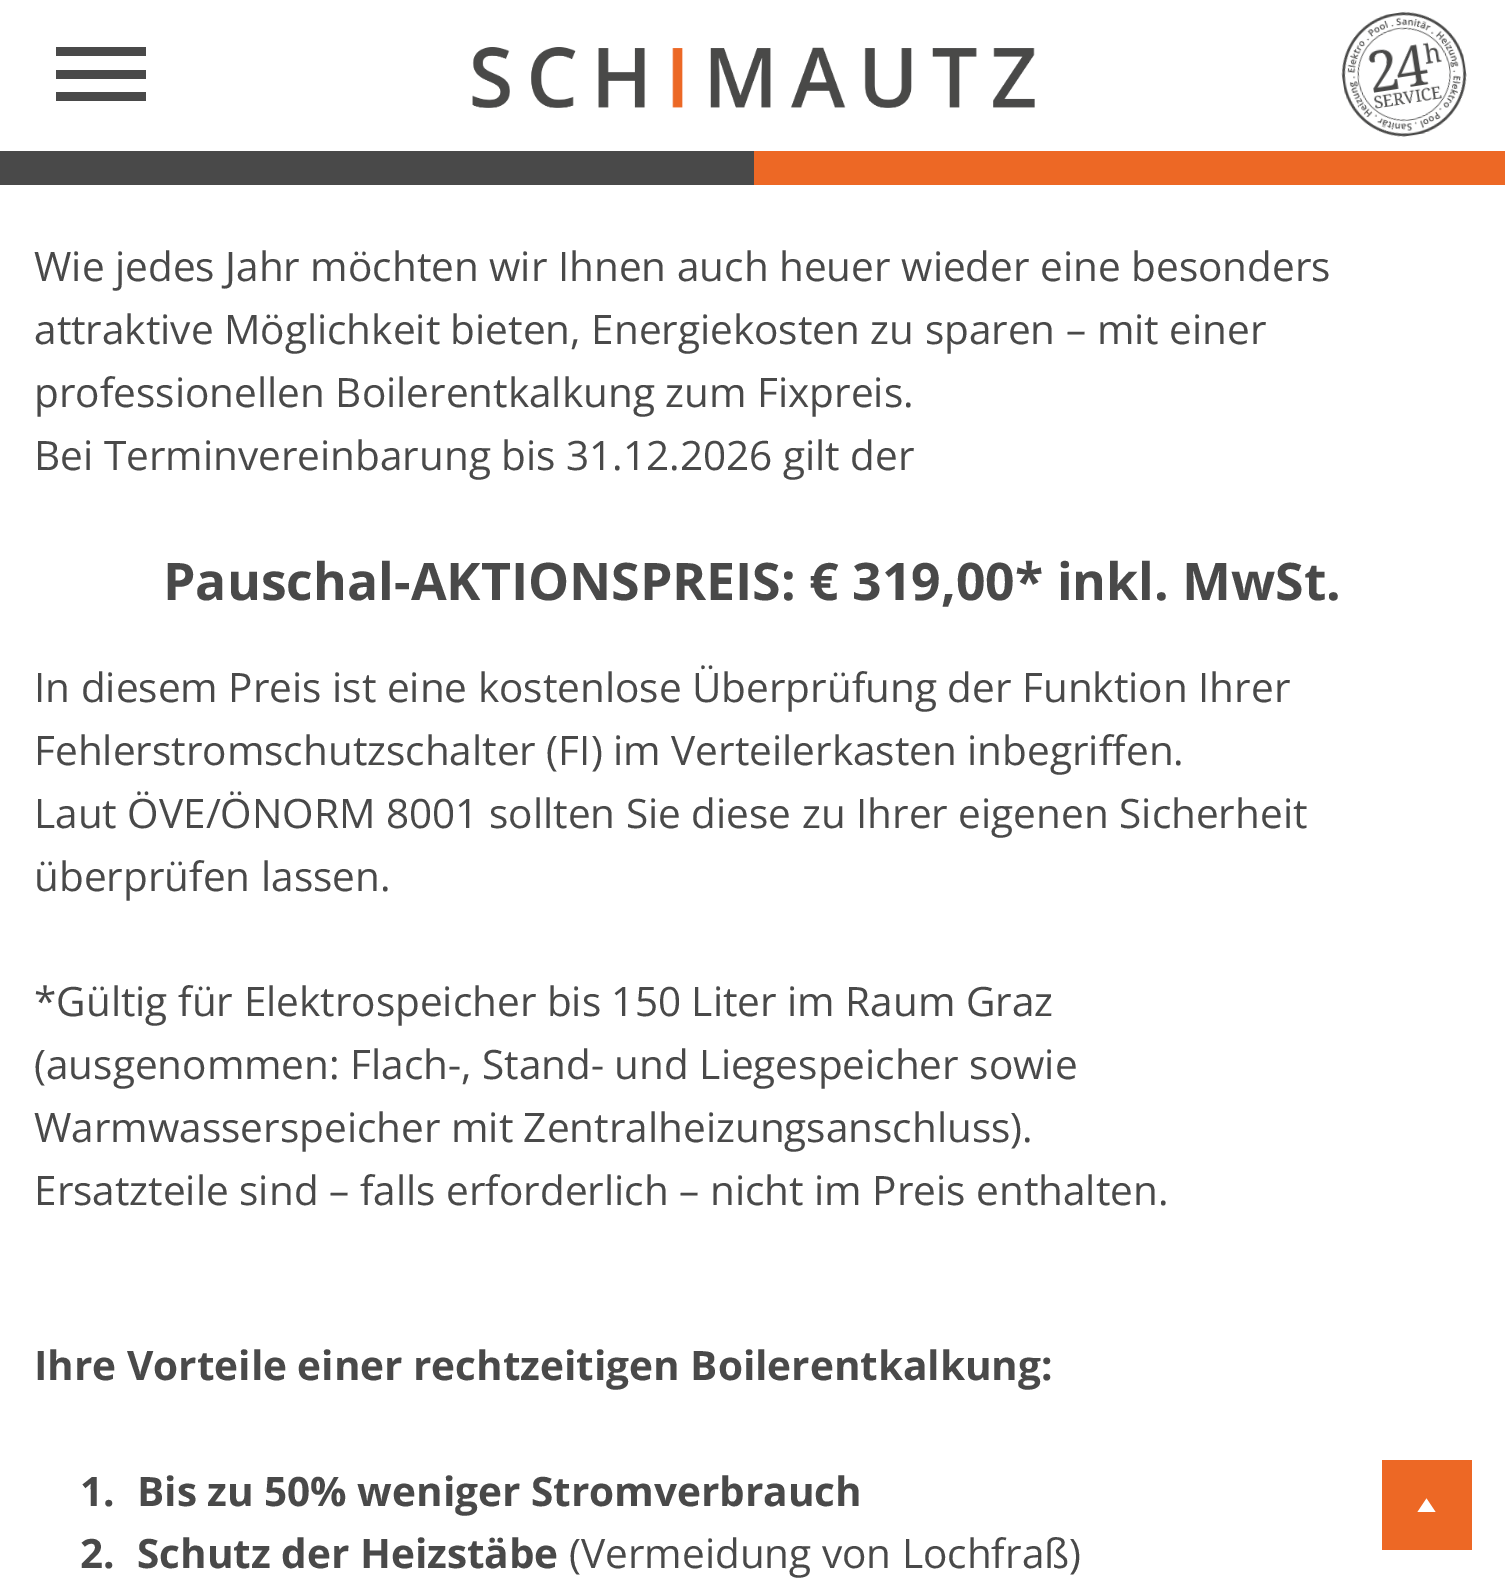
%!PS
<< /PageSize [1505 1583] >> setpagedevice
/rgb { 3 { 255 div 3 1 roll } repeat setrgbcolor } def
/font { [ exch dup neg 0 0 3 -1 roll 0 0 ] selectfont } def
/picture { 5 dict begin { /h /w /y /x /name } { exch def } forall
  gsave x y translate w h scale
  w h 8 [w 0 0 h 0 0] name (r) file false 3 colorimage grestore end } def
0 1583 translate 1 -1 scale
4 setmiterlimit
255 255 255 rgb
0 0 1505 1583 rectfill
[
  [56 47 90 9 73 73 73]
  [56 70 90 9 73 73 73]
  [56 92 90 9 73 73 73]
] { aload pop rgb rectfill } forall
(img/1.rgb) 472 47 563 61 picture
(img/2.rgb) 1341 11 126 126 picture
[
  [0 151 754 34 73 73 73]
  [754 151 751 34 237 104 37]
  [1382 1460 90 90 237 104 37]
] { aload pop rgb rectfill } forall
255 255 255 rgb
1435.5 1512 moveto 1417.5 1512 lineto 1426.5 1498.5 lineto closepath fill
/OpenSans-Regular 40.5 font
73 73 73 rgb
[
  [(Wie jedes Jahr möchten wir Ihnen auch heuer wieder eine besonders) 34 281]
  [(attraktive Möglichkeit bieten, Energiekosten zu sparen – mit einer) 34 344]
  [(professionellen Boilerentkalkung zum Fixpreis.) 34 407]
  [(Bei Terminvereinbarung bis 31.12.2026 gilt der) 34 470]
] { aload pop moveto show } forall
/OpenSans-Bold 51.75 font
163 600 moveto (Pauschal-AKTIONSPREIS: € 319,00* inkl. MwSt.) show
/OpenSans-Regular 40.5 font
[
  [(In diesem Preis ist eine kostenlose Überprüfung der Funktion Ihrer) 34 702]
  [(Fehlerstromschutzschalter \(FI\) im Verteilerkasten inbegriffen.) 34 765]
  [(Laut ÖVE/ÖNORM 8001 sollten Sie diese zu Ihrer eigenen Sicherheit) 34 828]
  [(überprüfen lassen.) 34 891]
  [(*Gültig für Elektrospeicher bis 150 Liter im Raum Graz) 34 1016]
  [(\(ausgenommen: Flach-, Stand- und Liegespeicher sowie) 34 1079]
  [(Warmwasserspeicher mit Zentralheizungsanschluss\).) 34 1142]
  [(Ersatzteile sind – falls erforderlich – nicht im Preis enthalten.) 34 1205]
] { aload pop moveto show } forall
/OpenSans-Bold 40.5 font
[
  [(Ihre Vorteile einer rechtzeitigen Boilerentkalkung:) 34 1380]
  [(1.) 80 1506]
  [(Bis zu 50% weniger Stromverbrauch) 137 1506]
  [(2.) 80 1568]
  [(Schutz der Heizstäbe) 137 1568]
] { aload pop moveto show } forall
/OpenSans-Regular 40.5 font
569 1568 moveto (\(Vermeidung von Lochfraß\)) show
showpage
